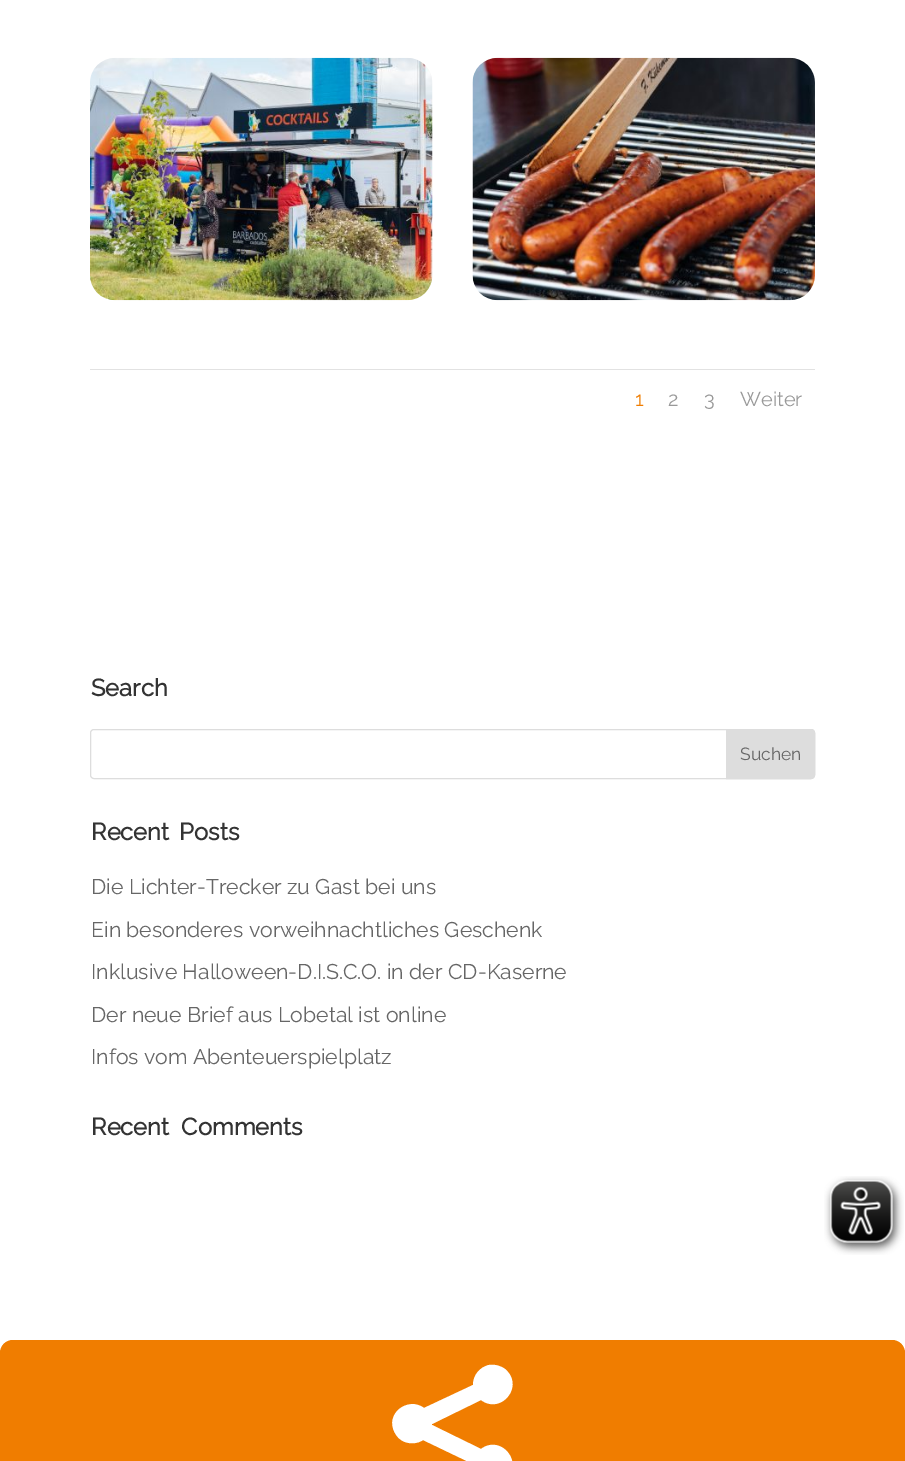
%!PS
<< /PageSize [905 1461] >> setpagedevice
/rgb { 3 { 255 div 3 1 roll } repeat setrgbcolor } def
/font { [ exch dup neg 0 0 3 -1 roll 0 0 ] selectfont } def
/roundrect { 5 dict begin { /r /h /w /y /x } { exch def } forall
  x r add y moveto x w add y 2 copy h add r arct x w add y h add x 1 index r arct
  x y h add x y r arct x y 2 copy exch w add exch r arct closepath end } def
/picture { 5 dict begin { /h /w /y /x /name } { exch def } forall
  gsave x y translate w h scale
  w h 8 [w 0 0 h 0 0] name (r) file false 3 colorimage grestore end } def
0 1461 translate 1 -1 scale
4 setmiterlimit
255 255 255 rgb
0 0 905 1461 rectfill
(img/1.rgb) 90 57 343 244 picture
(img/2.rgb) 472 57 343 244 picture
226 226 226 rgb
90 369 725 1 rectfill
221 221 221 rgb
90.5 729.5 724 49 3.5 roundrect stroke
726.5 729.5 moveto 811 729.5 lineto 813 729.5 814.5 731 814.5 733 curveto 814.5 775 lineto 814.5 777 813 778.5 811 778.5 curveto 726.5 778.5 lineto closepath gsave fill grestore
stroke
240 125 0 rgb
0 1340 905 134 13 roundrect fill
255 255 255 rgb
481 1400 moveto 501 1415 525 1386 505 1369 curveto 501 1366 495 1364 489 1365 curveto 480 1367 473 1375 473 1385 curveto 424 1408 lineto 408 1396 384 1414 395 1433 curveto 397 1437 400 1440 405 1442 curveto 411 1444 417 1444 423 1440 curveto 473 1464 lineto 473 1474 480 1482 489 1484 curveto 495 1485 501 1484 505 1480 curveto 525 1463 501 1434 481 1449 curveto 432 1425 lineto 432 1424 lineto closepath fill
(img/3.rgb) 824 1176 80 79 picture
/Raleway-Regular 20 font
240 125 0 rgb
635 406 moveto (1) show
153 153 153 rgb
[
  [(2) 668 406]
  [(3) 704 406]
  [(Weiter) 740 406]
] { aload pop moveto show } forall
/Raleway-Bold 23.75 font
51 51 51 rgb
91 696 moveto (Search) show
/Raleway-Regular 17.5 font
102 102 102 rgb
740 760 moveto (Suchen) show
/Raleway-Bold 23.75 font
51 51 51 rgb
91 840 moveto 4 0 32 (Recent Posts) widthshow
/Raleway-Regular 21.25 font
102 102 102 rgb
[
  [(Die Lichter-Trecker zu Gast bei uns) 91 894]
  [(Ein besonderes vorweihnachtliches Geschenk) 91 937]
  [(Inklusive Halloween-D.I.S.C.O. in der CD-Kaserne) 91 979]
  [(Der neue Brief aus Lobetal ist online) 91 1022]
  [(Infos vom Abenteuerspielplatz) 91 1064]
] { aload pop moveto show } forall
/Raleway-Bold 23.75 font
51 51 51 rgb
91 1135 moveto 6 0 32 (Recent Comments) widthshow
showpage
